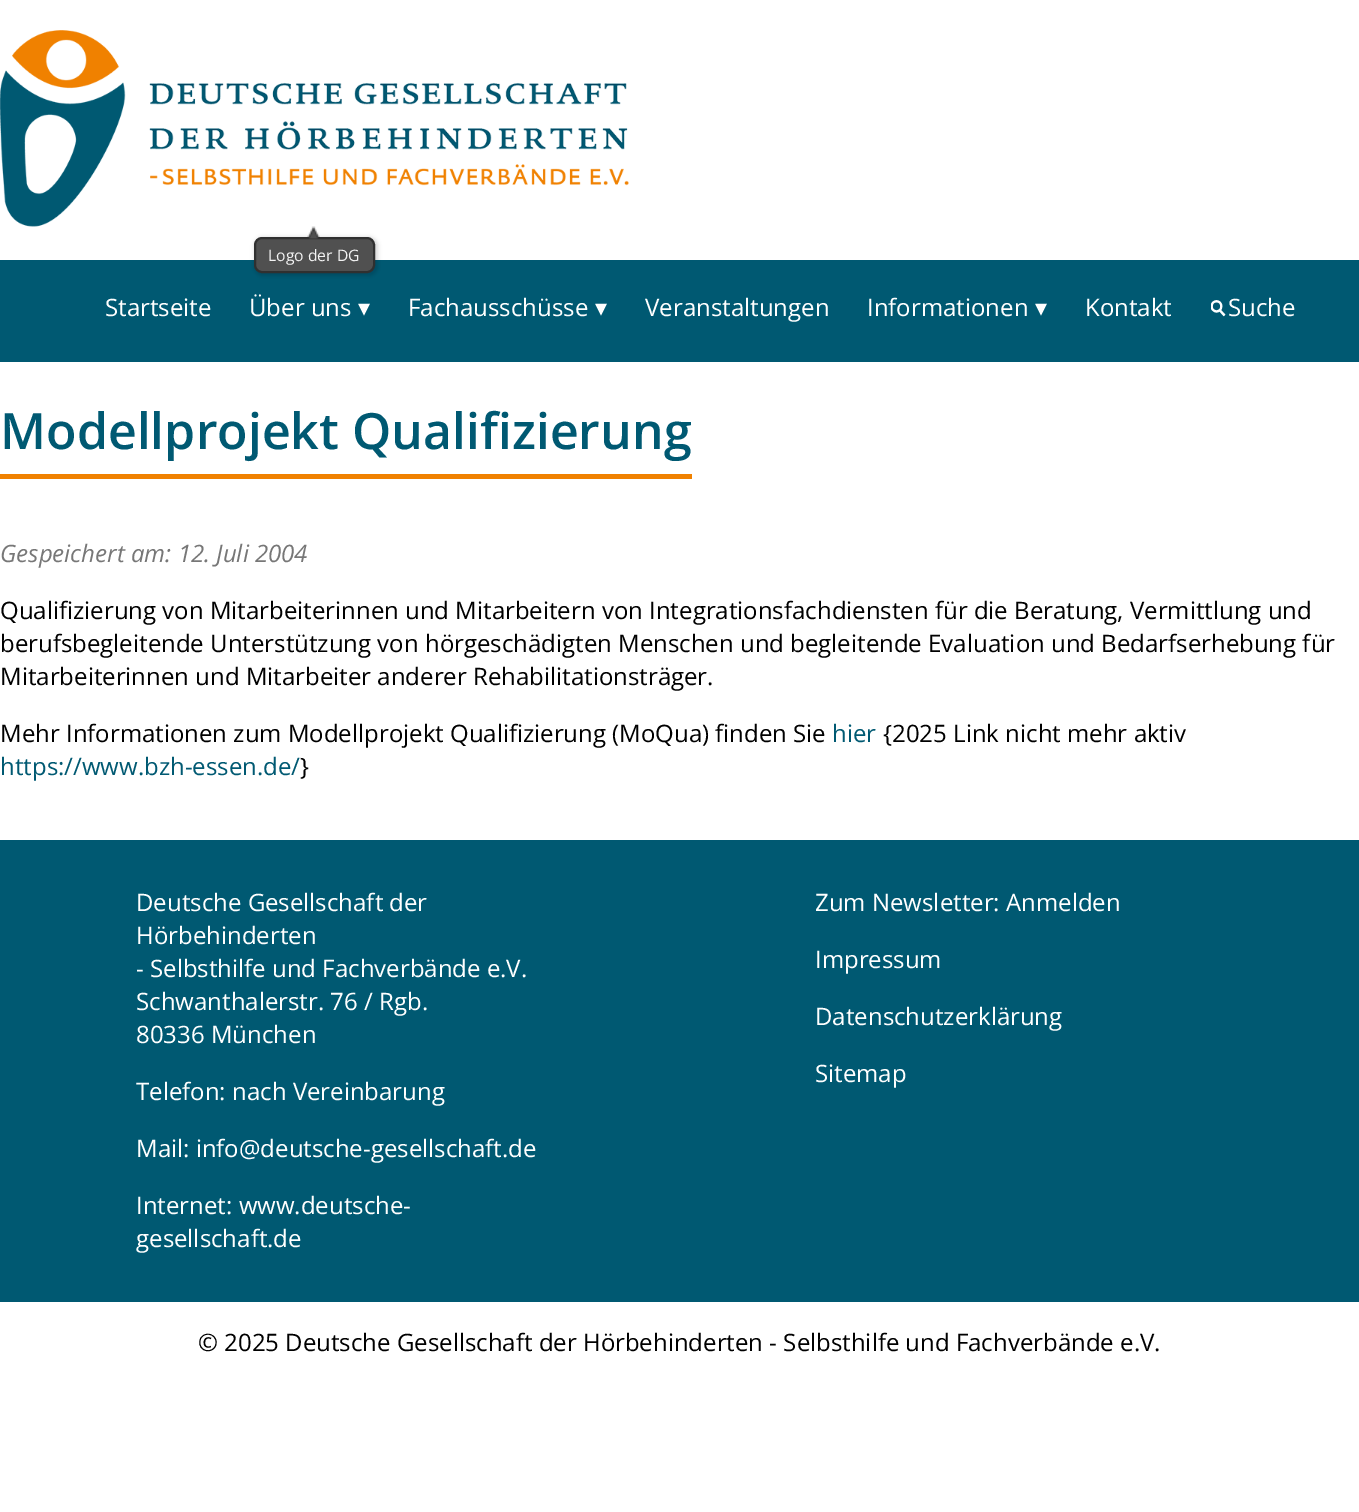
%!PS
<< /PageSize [1359 1512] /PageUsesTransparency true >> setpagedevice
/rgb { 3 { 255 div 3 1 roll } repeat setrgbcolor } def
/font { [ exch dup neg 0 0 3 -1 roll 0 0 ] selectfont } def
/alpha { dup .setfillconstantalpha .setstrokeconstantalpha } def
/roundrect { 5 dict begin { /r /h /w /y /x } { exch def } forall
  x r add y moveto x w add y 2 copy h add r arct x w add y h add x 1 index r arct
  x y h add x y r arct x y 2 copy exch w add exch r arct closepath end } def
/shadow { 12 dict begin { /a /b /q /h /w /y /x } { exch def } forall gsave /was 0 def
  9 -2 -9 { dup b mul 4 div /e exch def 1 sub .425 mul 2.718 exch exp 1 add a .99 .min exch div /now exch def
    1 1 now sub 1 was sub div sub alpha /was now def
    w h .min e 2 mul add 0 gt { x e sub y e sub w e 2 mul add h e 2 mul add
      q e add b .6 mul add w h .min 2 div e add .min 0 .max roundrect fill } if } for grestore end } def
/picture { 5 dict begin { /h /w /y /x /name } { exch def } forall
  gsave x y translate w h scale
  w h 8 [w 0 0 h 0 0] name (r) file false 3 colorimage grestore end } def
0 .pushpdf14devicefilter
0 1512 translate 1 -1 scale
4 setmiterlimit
255 255 255 rgb
0 0 1359 1512 rectfill
(img/1.rgb) 0 30 629 197 picture
0 89 114 rgb
0 260 1359 102 rectfill
0 0 0 rgb
254 237 124 39 9 2 0.15 shadow
80 80 80 rgb
255 238 119 34 7 roundrect gsave fill grestore
48 48 48 rgb
2 setlinewidth
stroke
(img/2.rgb) 307 226 13 13 picture
(img/3.rgb) 1211 300 15 17 picture
240 129 0 rgb
0 474 692 5 rectfill
0 89 114 rgb
0 840 1359 462 rectfill
/OpenSans-Regular 15.75 font
243 243 243 rgb
268 261 moveto (Logo der DG) show
/OpenSans-Regular 24 font
255 255 255 rgb
105 316 moveto (Startseite) show
249 316 moveto (Über uns) show
/DejaVuSans-Regular 24 font
358 316 moveto (▾) show
/OpenSans-Regular 24 font
408 316 moveto (Fachausschüsse) show
/DejaVuSans-Regular 24 font
595 316 moveto (▾) show
/OpenSans-Regular 24 font
645 316 moveto (Veranstaltungen) show
867 316 moveto (Informationen) show
/DejaVuSans-Regular 24 font
1035 316 moveto (▾) show
/OpenSans-Regular 24 font
1085 316 moveto (Kontakt) show
1228 316 moveto (Suche) show
/OpenSans-SemiBold 50 font
0 89 114 rgb
0 449 moveto (Modellprojekt Qualifizierung) show
/OpenSans-Italic 24 font
119 119 119 rgb
0 562 moveto (Gespeichert am: 12. Juli 2004) show
/OpenSans-Regular 24 font
0 0 0 rgb
[
  [(Qualifizierung von Mitarbeiterinnen und Mitarbeitern von Integrationsfachdiensten für die Beratung, Vermittlung und) 0 619]
  [(berufsbegleitende Unterstützung von hörgeschädigten Menschen und begleitende Evaluation und Bedarfserhebung für) 0 652]
  [(Mitarbeiterinnen und Mitarbeiter anderer Rehabilitationsträger.) 0 685]
  [(Mehr Informationen zum Modellprojekt Qualifizierung \(MoQua\) finden Sie) 0 742]
] { aload pop moveto show } forall
0 89 114 rgb
832 742 moveto (hier) show
0 0 0 rgb
883 742 moveto ({2025 Link nicht mehr aktiv) show
0 89 114 rgb
0 775 moveto (https://www.bzh-essen.de/) show
0 0 0 rgb
300 775 moveto (}) show
255 255 255 rgb
[
  [(Deutsche Gesellschaft der) 136 911]
  [(Hörbehinderten) 136 944]
  [(- Selbsthilfe und Fachverbände e.V.) 136 977]
  [(Schwanthalerstr. 76 / Rgb.) 136 1010]
  [(80336 München) 136 1043]
  [(Telefon: nach Vereinbarung) 136 1100]
  [(Mail: info@deutsche-gesellschaft.de) 136 1157]
  [(Internet: www.deutsche-) 136 1214]
  [(gesellschaft.de) 136 1247]
  [(Zum Newsletter: Anmelden) 815 911]
  [(Impressum) 815 968]
  [(Datenschutzerklärung) 815 1025]
  [(Sitemap) 815 1082]
] { aload pop moveto show } forall
0 0 0 rgb
198 1351 moveto (© 2025 Deutsche Gesellschaft der Hörbehinderten - Selbsthilfe und Fachverbände e.V.) show
.poppdf14devicefilter showpage
